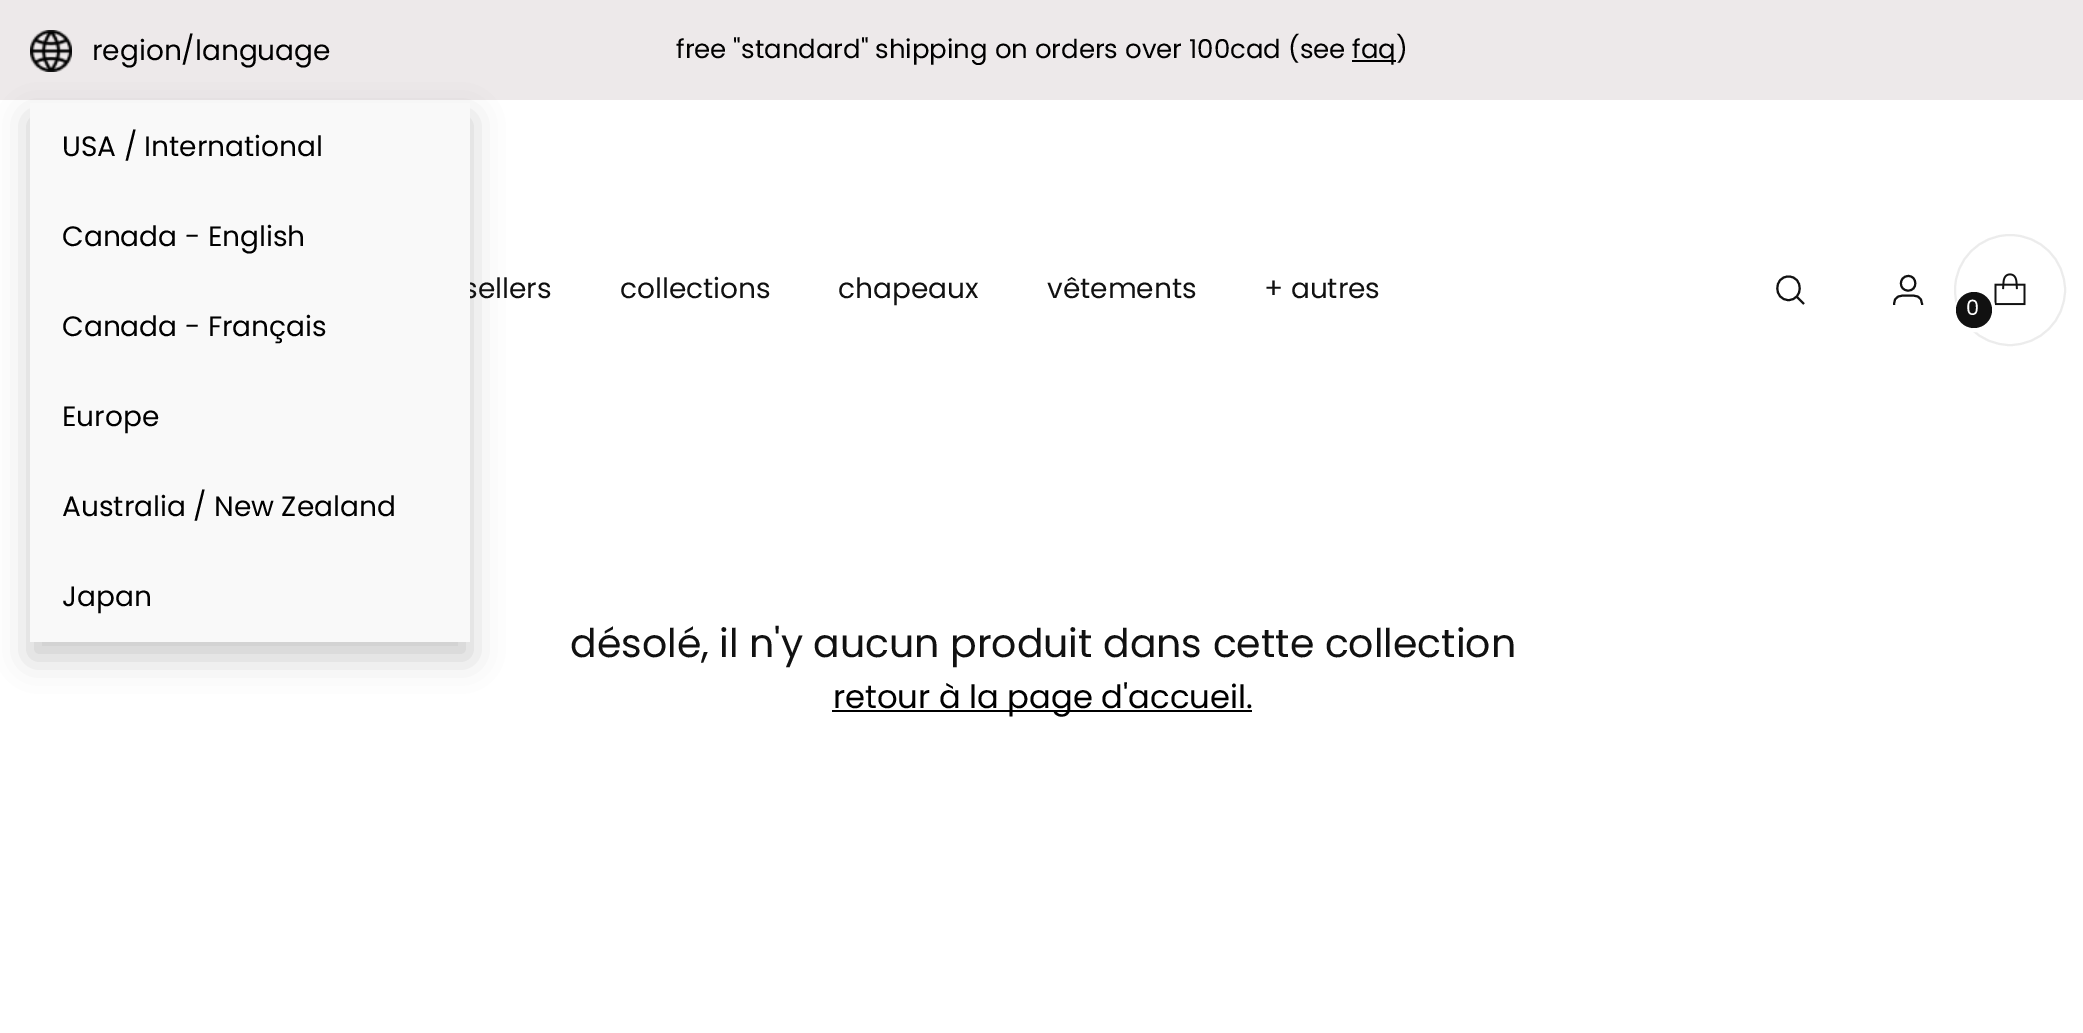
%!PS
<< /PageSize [2083 1033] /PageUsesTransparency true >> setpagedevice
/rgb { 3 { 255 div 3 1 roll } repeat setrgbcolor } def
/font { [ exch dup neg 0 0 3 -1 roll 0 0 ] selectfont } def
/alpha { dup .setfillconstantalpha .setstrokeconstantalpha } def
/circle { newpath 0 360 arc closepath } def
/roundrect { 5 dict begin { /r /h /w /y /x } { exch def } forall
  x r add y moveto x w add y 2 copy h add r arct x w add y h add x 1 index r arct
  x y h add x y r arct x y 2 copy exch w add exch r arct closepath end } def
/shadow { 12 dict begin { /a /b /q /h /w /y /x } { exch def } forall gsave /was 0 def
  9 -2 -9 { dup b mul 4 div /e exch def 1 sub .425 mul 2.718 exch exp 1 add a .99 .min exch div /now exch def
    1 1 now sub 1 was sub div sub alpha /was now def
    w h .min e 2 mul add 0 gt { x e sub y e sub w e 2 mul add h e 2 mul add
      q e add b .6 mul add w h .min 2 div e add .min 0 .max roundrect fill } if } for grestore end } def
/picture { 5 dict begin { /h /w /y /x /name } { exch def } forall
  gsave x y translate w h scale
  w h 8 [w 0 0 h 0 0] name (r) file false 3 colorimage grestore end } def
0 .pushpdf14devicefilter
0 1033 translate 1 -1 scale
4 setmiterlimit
255 255 255 rgb
0 0 2083 1033 rectfill
237 233 234 rgb
0 0 2083 100 rectfill
(img/1.rgb) 30 30 42 42 picture
0 0 0 rgb
30 118 440 540 0 16 0.2 shadow
1352 60 44 2 rectfill
17 17 17 rgb
2 setlinewidth
1 setlinecap
1788.5 300 moveto 1803.5 300 1803.5 276.5 1788.5 276.5 curveto 1773.5 276.5 1773.5 300 1788.5 300 curveto closepath stroke
0 setlinecap
1796.5 296.5 moveto 1804 304 lineto stroke
1908 290.5 moveto 1918 291 1917.5 275.5 1908 276 curveto 1898.5 276.5 1898.5 290.5 1908 290.5 curveto closepath 1894 305 moveto 1894 295 1900.5 295.5 1908 295.5 curveto 1915.5 295.5 1922 295 1922 305 curveto stroke
236 236 236 rgb
2010 290 55 circle stroke
(img/2.rgb) 1994 273 32 33 picture
255 255 255 rgb
3 setlinewidth
1975 311 19.5 circle stroke
17 17 17 rgb
1974 310 18 circle fill
0 0 0 rgb
832 710 420 2 rectfill
/Poppins-Regular 28 font
92 60 moveto (region/language) show
/Poppins-Regular 26 font
676 58 moveto (free "standard" shipping on orders over 100cad \(see) show
1352 58 moveto (faq\)) show
/Poppins-Regular 28 font
17 17 17 rgb
463 298 moveto (sellers) show
249 249 249 rgb
30 103 440 539 rectfill
0 0 0 rgb
[
  [(Japan) 62 606]
  [(Australia / New Zealand) 62 516]
  [(Europe) 62 426]
  [(Canada - Français) 62 336]
  [(Canada - English) 62 246]
  [(USA / International) 62 156]
] { aload pop moveto show } forall
17 17 17 rgb
[
  [(collections) 620 298]
  [(chapeaux) 838 298]
  [(vêtements) 1047 298]
  [(+ autres) 1264 298]
] { aload pop moveto show } forall
/Poppins-Regular 21 font
255 255 255 rgb
1966 315 moveto (0) show
/Poppins-Regular 39.4 font
17 17 17 rgb
570 657 moveto (désolé, il n'y aucun produit dans cette collection) show
/Poppins-Regular 32.25 font
0 0 0 rgb
833 708 moveto (retour à la page d'accueil.) show
.poppdf14devicefilter showpage
